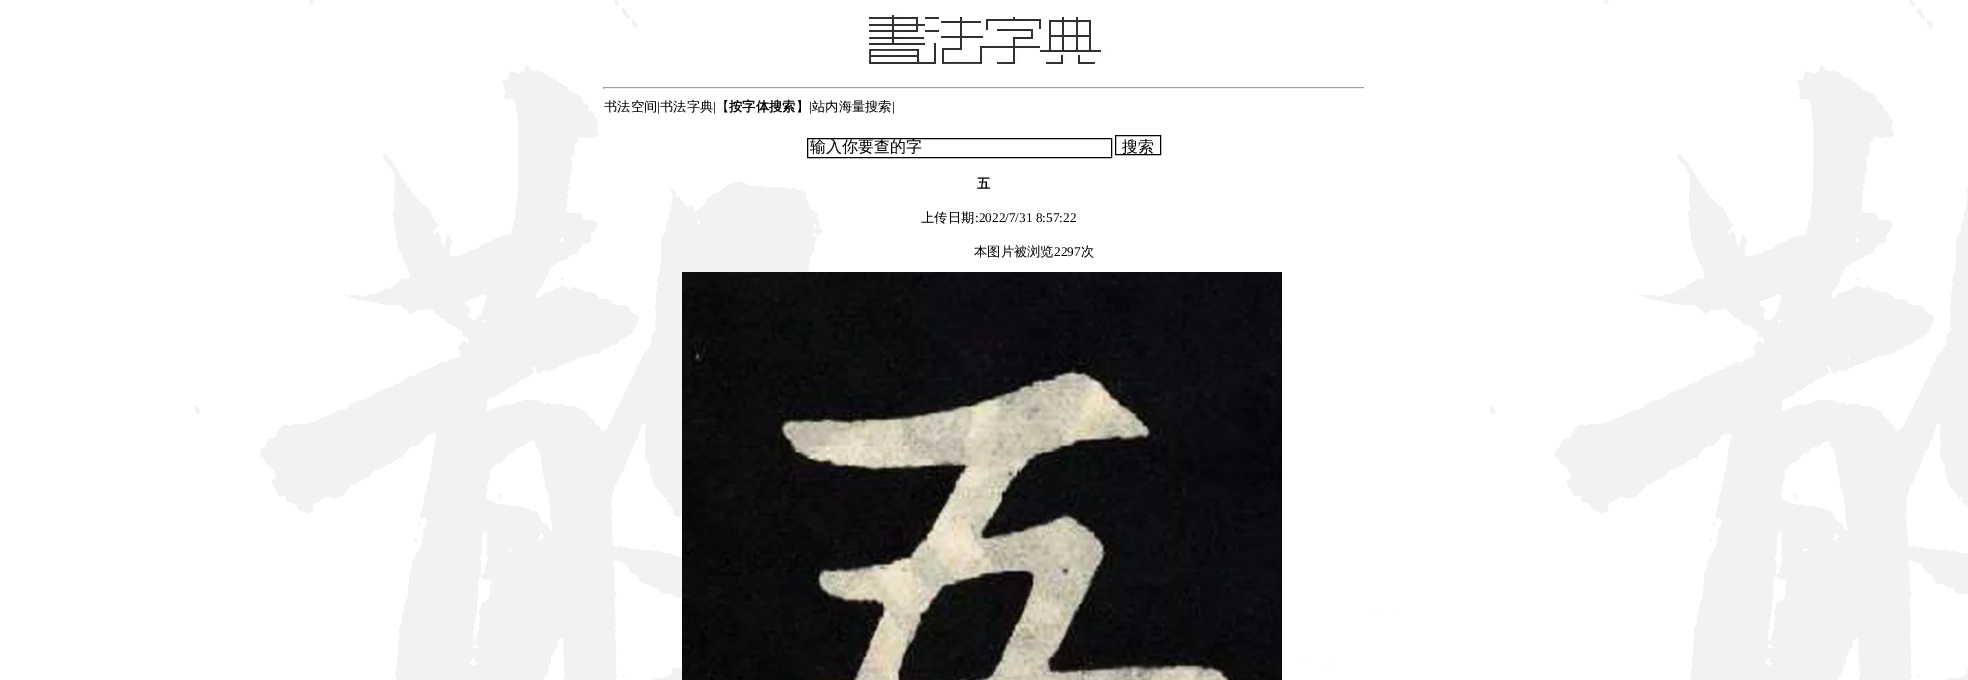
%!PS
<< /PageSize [1968 680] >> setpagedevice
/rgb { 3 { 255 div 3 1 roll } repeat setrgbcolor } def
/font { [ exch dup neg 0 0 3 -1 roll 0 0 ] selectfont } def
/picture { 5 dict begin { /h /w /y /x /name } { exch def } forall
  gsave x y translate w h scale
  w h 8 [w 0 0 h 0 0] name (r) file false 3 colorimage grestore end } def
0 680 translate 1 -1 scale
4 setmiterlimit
255 255 255 rgb
0 0 1968 680 rectfill
(img/1.rgb) 194 0 1774 680 picture
(img/2.rgb) 867 9 240 55 picture
[
  [603 87 762 1 159 159 159]
  [1364 87 1 2 238 238 238]
  [603 88 762 1 238 238 238]
  [603 87 1 2 159 159 159]
] { aload pop rgb rectfill } forall
0 0 0 rgb
807.5 138.5 304 19 rectstroke
1115.5 135.5 45 19 rectstroke
(img/3.rgb) 682 272 600 408 picture
/WenQuanYiZenHei-Medium 13.25 font
604 111 moveto (书法空间) show
/LiberationSerif-Regular 13.25 font
657 111 moveto (|) show
/WenQuanYiZenHei-Medium 13.25 font
660 111 moveto (书法字典) show
/LiberationSerif-Regular 13.25 font
713 111 moveto (|) show
/WenQuanYiZenHei-Medium 13.25 font
716 111 moveto (【) show
/WenQuanYiZenHei-Bold 13.25 font
729 111 moveto (按字体搜索) show
/WenQuanYiZenHei-Medium 13.25 font
796 111 moveto (】) show
/LiberationSerif-Regular 13.25 font
809 111 moveto (|) show
/WenQuanYiZenHei-Medium 13.25 font
812 111 moveto (站内海量搜索) show
/LiberationSerif-Regular 13.25 font
892 111 moveto (|) show
gsave
810 139 299 18 rectclip
/WenQuanYiZenHei-Medium 16 font
810 152 moveto (输入你要查的字) show
grestore
gsave
1116 136 44 18 rectclip
/WenQuanYiZenHei-Medium 16 font
1122 152 moveto (搜索) show
grestore
/WenQuanYiZenHei-Bold 13.25 font
977 188 moveto (五) show
/WenQuanYiZenHei-Medium 13.25 font
921 222 moveto (上传日期) show
/LiberationSerif-Regular 13.25 font
975 222 moveto (:2022/7/31 8:57:22) show
/WenQuanYiZenHei-Medium 13.25 font
974 256 moveto (本图片被浏览) show
/LiberationSerif-Regular 13.25 font
1054 256 moveto (2297) show
/WenQuanYiZenHei-Medium 13.25 font
1081 256 moveto (次) show
showpage
